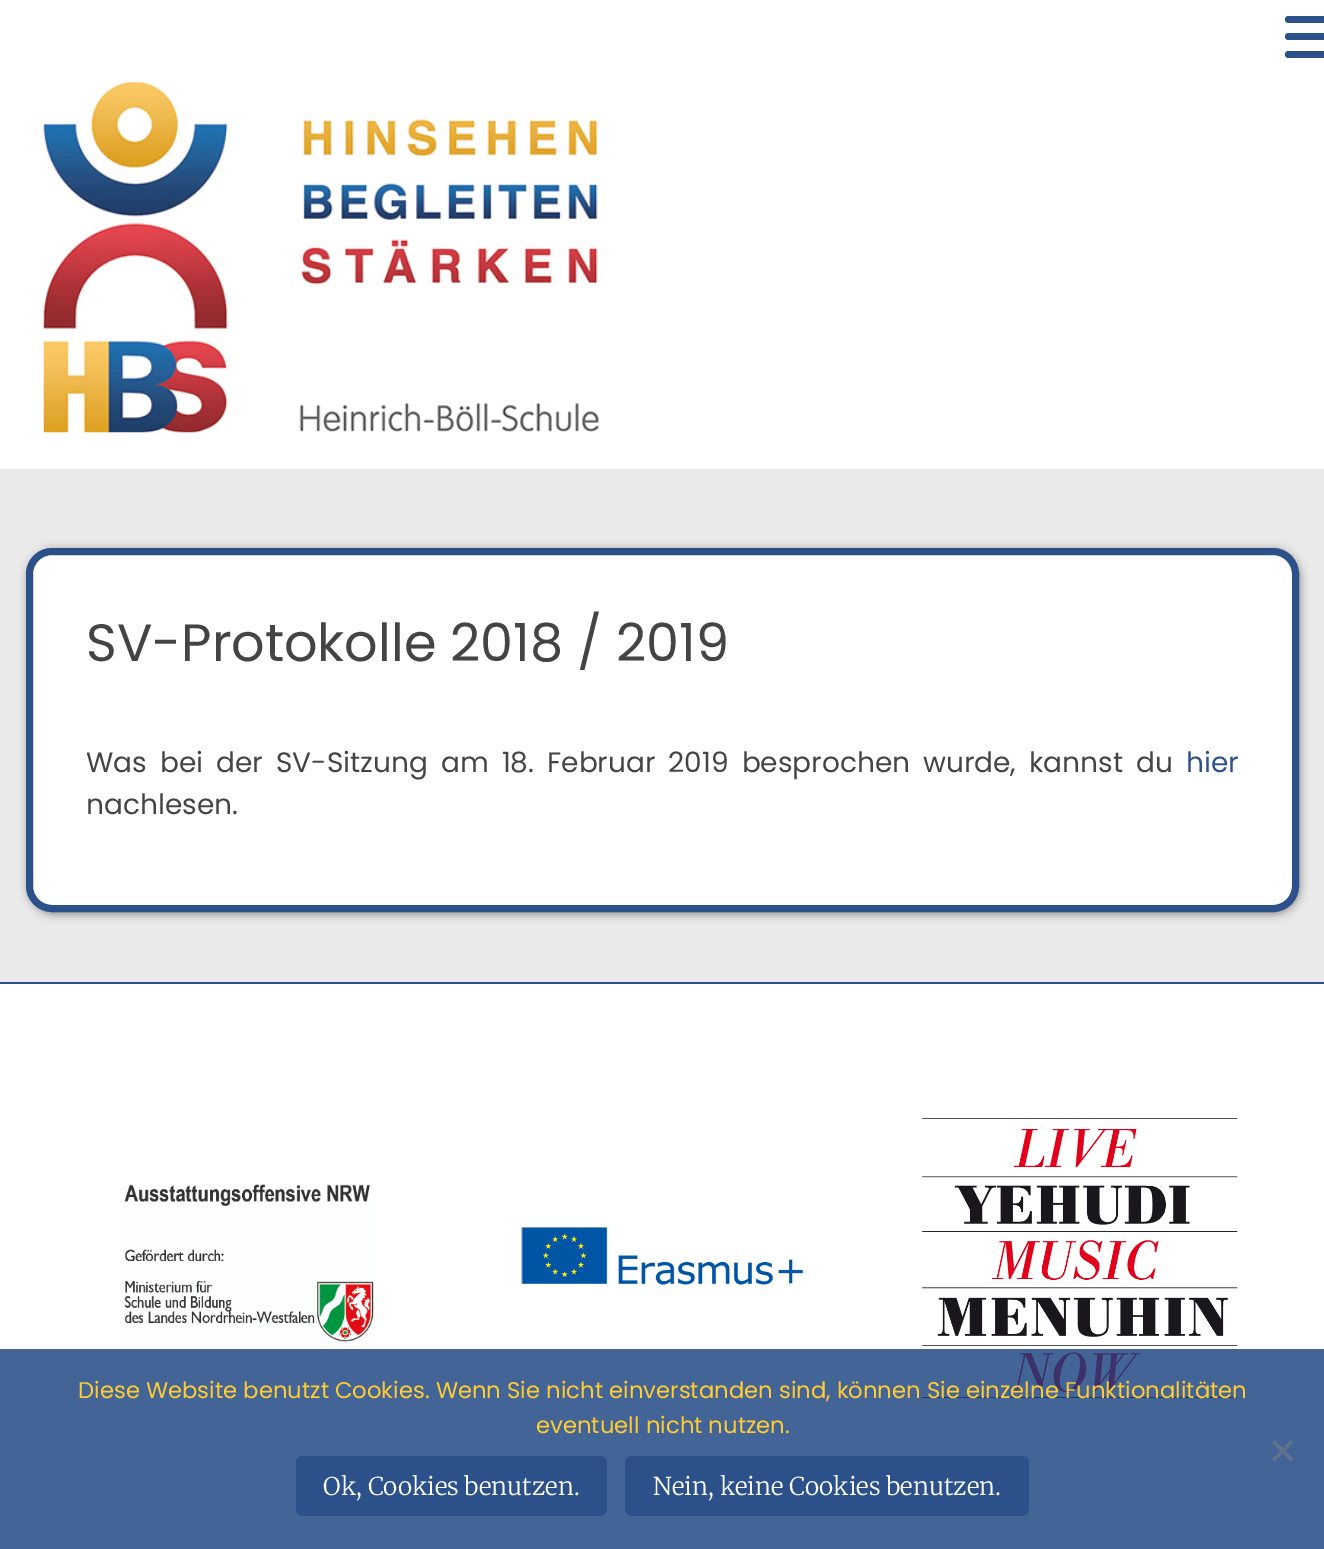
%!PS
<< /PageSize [1324 1549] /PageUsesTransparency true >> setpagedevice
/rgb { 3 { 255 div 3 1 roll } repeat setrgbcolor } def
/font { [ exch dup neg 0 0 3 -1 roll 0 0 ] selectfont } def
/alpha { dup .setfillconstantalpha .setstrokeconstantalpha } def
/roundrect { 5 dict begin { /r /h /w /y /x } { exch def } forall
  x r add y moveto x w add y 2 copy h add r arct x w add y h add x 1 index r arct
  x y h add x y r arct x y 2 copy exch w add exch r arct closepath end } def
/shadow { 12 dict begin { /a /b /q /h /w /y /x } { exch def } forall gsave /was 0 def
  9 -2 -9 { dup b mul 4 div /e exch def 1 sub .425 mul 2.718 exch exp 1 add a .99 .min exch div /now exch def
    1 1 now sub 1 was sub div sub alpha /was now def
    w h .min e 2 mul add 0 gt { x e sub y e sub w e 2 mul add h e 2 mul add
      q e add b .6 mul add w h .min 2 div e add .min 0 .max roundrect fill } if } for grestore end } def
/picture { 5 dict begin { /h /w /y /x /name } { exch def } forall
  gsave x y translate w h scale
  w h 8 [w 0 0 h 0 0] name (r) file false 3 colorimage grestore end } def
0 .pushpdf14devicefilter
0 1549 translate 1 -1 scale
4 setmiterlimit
255 255 255 rgb
0 0 1324 1549 rectfill
44 81 138 rgb
1285 16 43 7 3.5 roundrect fill
1285 33 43 7 3.5 roundrect fill
1285 51 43 7 3.5 roundrect fill
(img/1.rgb) 43 82 556 351 picture
234 234 234 rgb
0 469 1324 513 rectfill
136 136 136 rgb
28 550 1272 364 26 4.5 1 shadow
255 255 255 rgb
29.5 551.5 1266 357 22.5 roundrect gsave fill grestore
44 81 138 rgb
7 setlinewidth
stroke
0 982 1324 2 rectfill
(img/2.rgb) 124 1184 250 158 picture
(img/3.rgb) 521 1227 283 59 picture
(img/4.rgb) 922 1118 316 280 picture
0.8 alpha
20 61 125 rgb
0 1349 1324 200 rectfill
1 alpha
98 114 140 rgb
1291 1440 moveto 1293.5 1442.5 lineto 1274.5 1461.5 lineto 1272 1459 lineto closepath fill
1272 1442.5 moveto 1274.5 1440 lineto 1293.5 1459 lineto 1291 1461.5 lineto closepath fill
44 81 138 rgb
296 1456 311 60 7 roundrect fill
625 1456 404 60 7 roundrect fill
/Poppins-Regular 52.5 font
68 68 68 rgb
86 661 moveto (SV-Protokolle 2018 / 2019) show
/Poppins-Regular 28 font
86 772 moveto 5.6 0 32 (Was bei der SV-Sitzung am 18. Februar 2019 besprochen wurde, kannst du) widthshow
44 81 138 rgb
1186 772 moveto (hier) show
68 68 68 rgb
86 814 moveto (nachlesen.) show
/Poppins-Regular 22.75 font
255 204 52 rgb
78 1398 moveto (Diese Website benutzt Cookies. Wenn Sie nicht einverstanden sind, können Sie einzelne Funktionalitäten) show
536 1433 moveto (eventuell nicht nutzen.) show
/Merriweather-Light 24.5 font
255 255 255 rgb
323 1495 moveto (Ok, Cookies benutzen.) show
653 1495 moveto (Nein, keine Cookies benutzen.) show
.poppdf14devicefilter showpage
